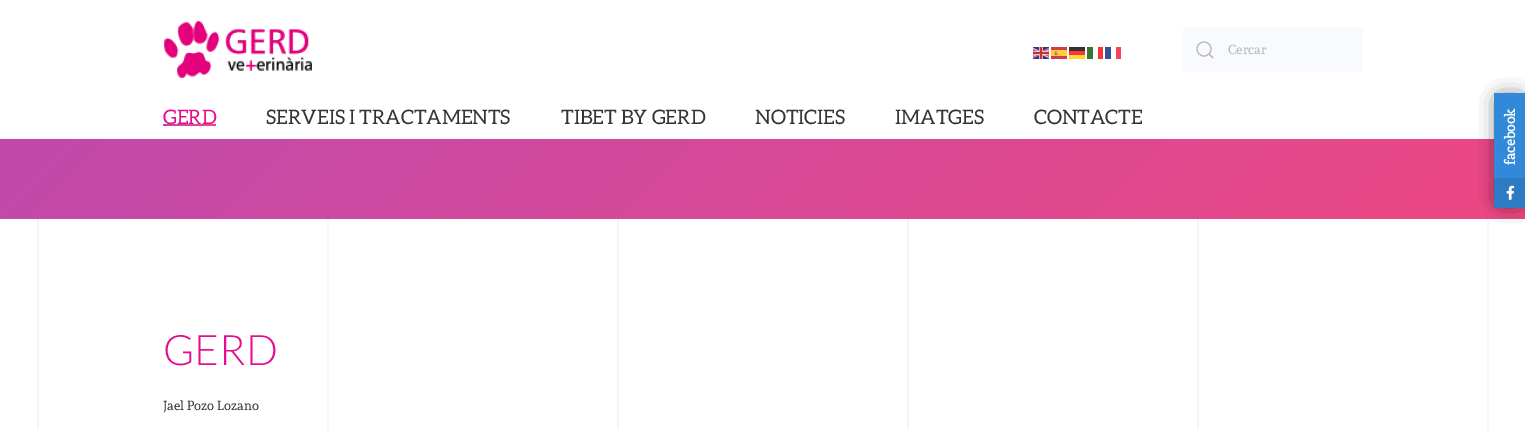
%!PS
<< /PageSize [1525 430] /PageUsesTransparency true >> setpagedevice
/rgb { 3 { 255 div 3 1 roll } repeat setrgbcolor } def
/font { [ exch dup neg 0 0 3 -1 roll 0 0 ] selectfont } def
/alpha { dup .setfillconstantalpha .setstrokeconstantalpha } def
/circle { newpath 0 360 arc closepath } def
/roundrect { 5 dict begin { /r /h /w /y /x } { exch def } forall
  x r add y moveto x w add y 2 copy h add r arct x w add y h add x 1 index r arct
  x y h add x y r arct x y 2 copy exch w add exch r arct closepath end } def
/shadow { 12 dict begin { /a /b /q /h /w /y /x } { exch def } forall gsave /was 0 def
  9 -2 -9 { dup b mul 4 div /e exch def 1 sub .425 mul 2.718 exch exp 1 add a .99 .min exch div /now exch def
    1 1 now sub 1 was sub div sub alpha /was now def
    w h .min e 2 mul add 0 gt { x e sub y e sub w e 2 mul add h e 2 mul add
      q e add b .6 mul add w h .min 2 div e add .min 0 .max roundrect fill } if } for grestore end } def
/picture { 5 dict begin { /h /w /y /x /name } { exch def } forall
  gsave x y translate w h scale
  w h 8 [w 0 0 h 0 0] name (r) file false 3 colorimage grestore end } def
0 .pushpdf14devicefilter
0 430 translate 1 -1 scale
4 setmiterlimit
255 255 255 rgb
0 0 1525 430 rectfill
gsave 163 124 moveto 216 124 lineto 216 126 lineto 163 126 lineto closepath clip newpath
<< /ShadingType 2 /ColorSpace /DeviceRGB /Coords [164 120 215 130] /Extend [true true] /Function << /FunctionType 2 /Domain [0 1] /C0 [0.757 0.29 0.675] /C1 [0.929 0.282 0.51] /N 1 >> >> shfill grestore
(img/1.rgb) 164 21 148 57 picture
(img/2.rgb) 1033 47 16 12 picture
(img/3.rgb) 1051 47 16 12 picture
[
  [1069 47 16 4 51 51 51]
  [1087 47 6 12 51 121 51]
  [1098 47 5 12 253 51 51]
  [1105 47 6 12 51 81 153]
  [1116 47 5 12 245 70 89]
  [1069 51 16 4 255 51 51]
  [1069 55 16 4 255 214 51]
  [1183 27 180 45 249 250 254]
] { aload pop rgb rectfill } forall
182 182 182 rgb
1.1 setlinewidth
1204 49 7 circle stroke
1209 54 moveto 1213 58 lineto closepath stroke
gsave 0 139 moveto 1525 139 lineto 1525 219 lineto 0 219 lineto closepath clip newpath
<< /ShadingType 2 /ColorSpace /DeviceRGB /Coords [361 -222 1164 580] /Extend [true true] /Function << /FunctionType 2 /Domain [0 1] /C0 [0.757 0.29 0.675] /C1 [0.929 0.282 0.51] /N 1 >> >> shfill grestore
(img/5.rgb) 37 219 1452 211 picture
0 0 0 rgb
1501 100 18 101 0 10 1 shadow
50 137 217 rgb
1494 93 31 85 rectfill
45 123 195 rgb
1494 178 31 30 rectfill
(img/4.rgb) 1506 185 9 15 picture
/Aleo-Regular 20 font
231 12 143 rgb
163 124 moveto (GERD) show
52 52 52 rgb
[
  [(SERVEIS I TRACTAMENTS) 266 124]
  [(TIBET BY GERD) 561 124]
  [(NOTICIES) 755 124]
  [(IMATGES) 895 124]
  [(CONTACTE) 1034 124]
] { aload pop moveto show } forall
/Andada-Regular 13 font
182 182 182 rgb
1228 54 moveto (Cercar) show
/Andada-Bold 14 font
255 255 255 rgb
gsave 1515 165 translate -90 rotate 0 0 moveto (facebook) show grestore
/Lato-Light 42 font
231 12 143 rgb
163 365 moveto (GERD) show
/Andada-Regular 13 font
52 52 52 rgb
163 410 moveto (Jael Pozo Lozano) show
.poppdf14devicefilter showpage
